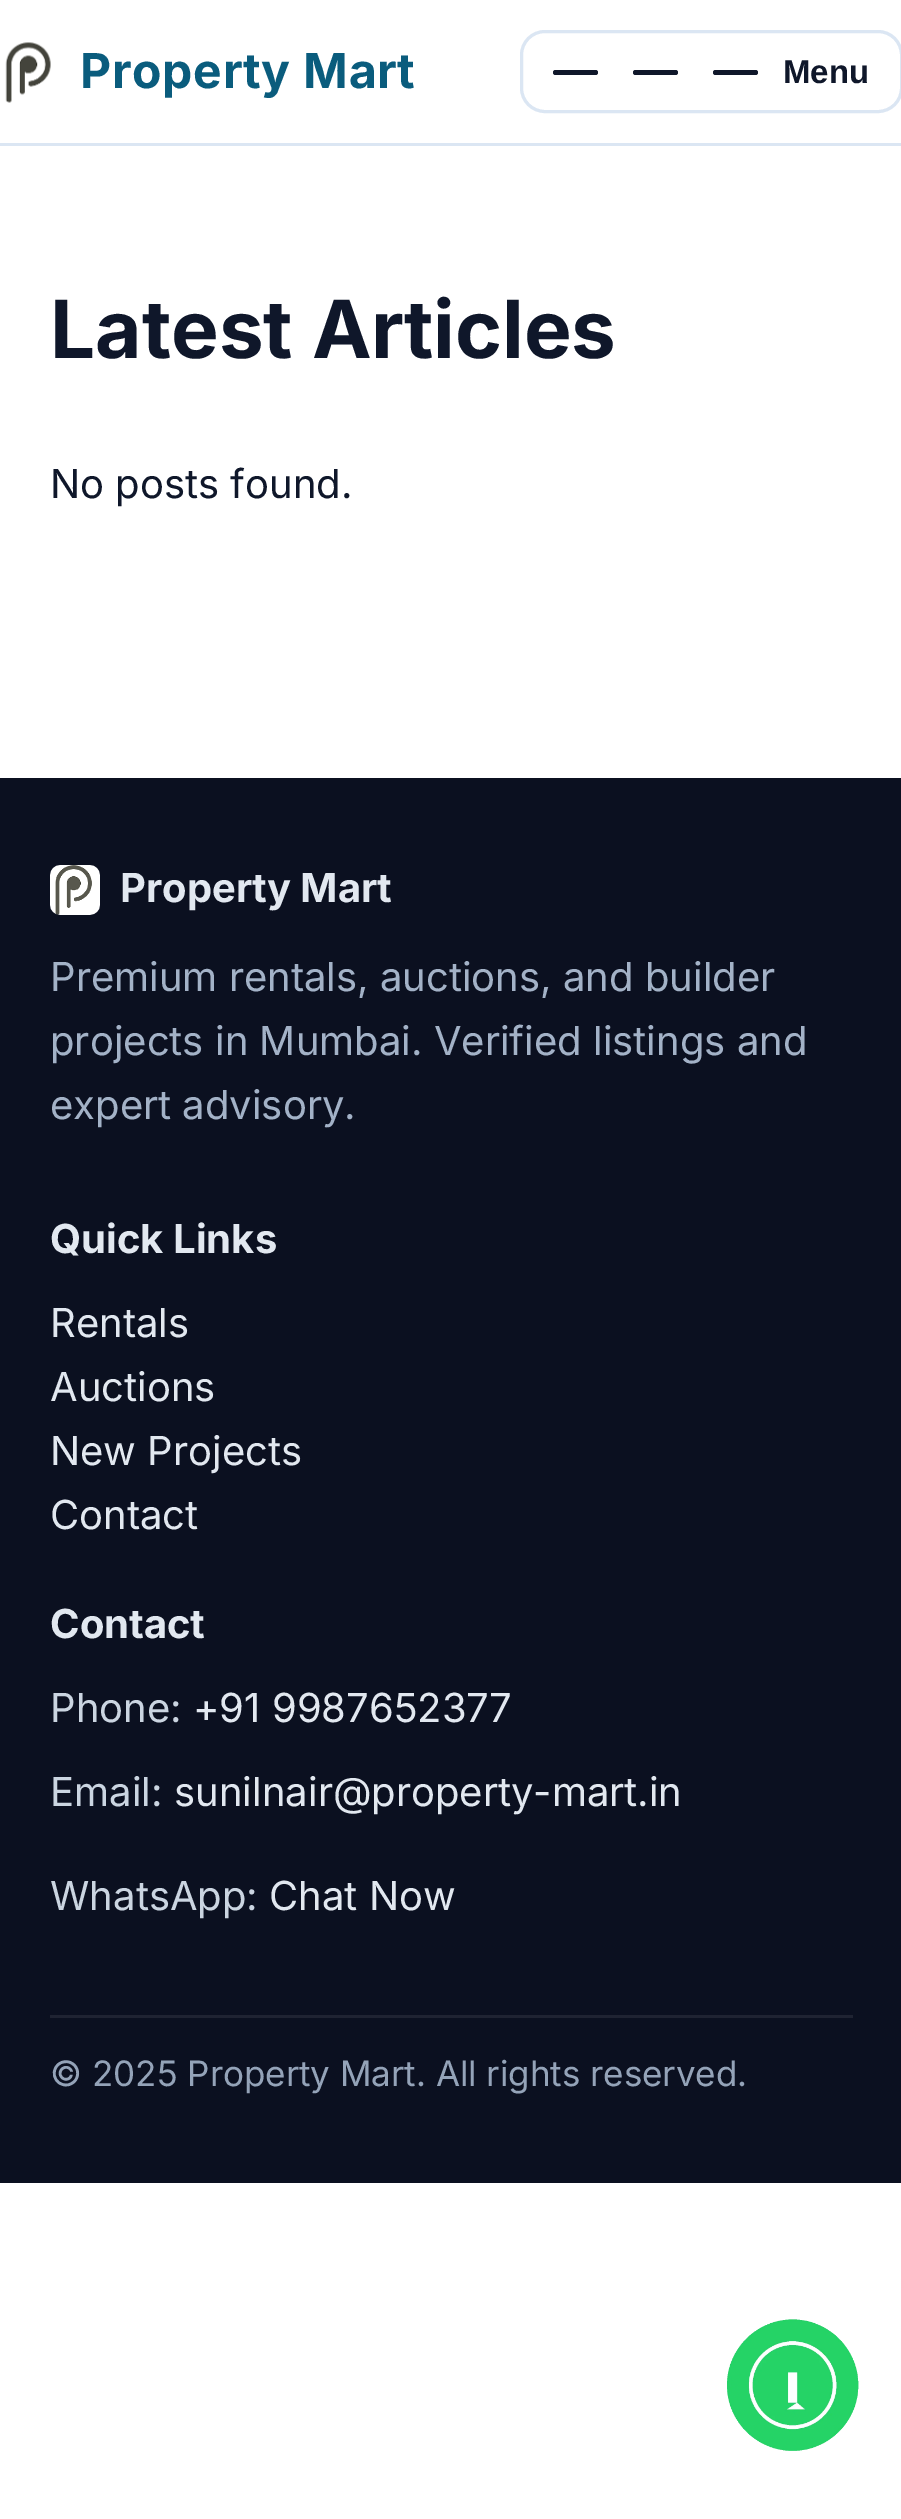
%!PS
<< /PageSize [901 2519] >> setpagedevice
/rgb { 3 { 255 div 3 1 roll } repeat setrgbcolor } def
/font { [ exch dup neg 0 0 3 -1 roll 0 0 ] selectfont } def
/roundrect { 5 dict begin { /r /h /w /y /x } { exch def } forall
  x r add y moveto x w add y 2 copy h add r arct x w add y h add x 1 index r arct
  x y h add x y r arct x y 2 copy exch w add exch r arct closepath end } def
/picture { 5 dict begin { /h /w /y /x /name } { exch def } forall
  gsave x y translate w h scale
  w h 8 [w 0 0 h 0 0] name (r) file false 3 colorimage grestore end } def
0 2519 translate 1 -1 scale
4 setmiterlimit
255 255 255 rgb
0 0 901 2519 rectfill
219 230 243 rgb
0 143 901 3 rectfill
(img/1.rgb) 5 42 46 61 picture
3 setlinewidth
521.5 31.5 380 80 23.5 roundrect stroke
15 23 42 rgb
553 70 45 5 2.5 roundrect fill
633 70 45 5 2.5 roundrect fill
713 70 45 5 2.5 roundrect fill
11 16 32 rgb
0 778 901 1405 rectfill
(img/2.rgb) 50 865 50 50 picture
31 35 50 rgb
50 2015 803 3 rectfill
(img/3.rgb) 727 2319 132 132 picture
/Inter-Bold 48 font
10 92 125 rgb
80 88 moveto 0.75 0 (Property Mart) ashow
/LiberationSans-Bold 33 font
15 23 42 rgb
783 83 moveto (Menu) show
/Inter-Bold 80 font
50 358 moveto (Latest Articles) show
/Inter-Regular 40 font
50 498 moveto (No posts found.) show
/Inter-Bold 40 font
226 232 240 rgb
120 902 moveto (Property Mart) show
/Inter-Regular 40 font
163 178 199 rgb
[
  [(Premium rentals, auctions, and builder) 50 991]
  [(projects in Mumbai. Verified listings and) 50 1055]
  [(expert advisory.) 50 1119]
] { aload pop moveto show } forall
/Inter-Bold 40 font
226 232 240 rgb
50 1253 moveto (Quick Links) show
/Inter-Regular 40 font
[
  [(Rentals) 50 1337]
  [(Auctions) 50 1401]
  [(New Projects) 50 1465]
  [(Contact) 50 1529]
] { aload pop moveto show } forall
/Inter-Bold 40 font
50 1638 moveto (Contact) show
/Inter-Regular 40 font
203 213 225 rgb
50 1722 moveto (Phone:) show
226 232 240 rgb
193 1722 moveto (+91 9987652377) show
203 213 225 rgb
50 1806 moveto (Email:) show
226 232 240 rgb
174 1806 moveto (sunilnair@property-mart.in) show
203 213 225 rgb
50 1910 moveto (WhatsApp:) show
226 232 240 rgb
269 1910 moveto (Chat Now) show
/Inter-Regular 35 font
148 163 184 rgb
50 2086 moveto (© 2025 Property Mart. All rights reserved.) show
showpage
